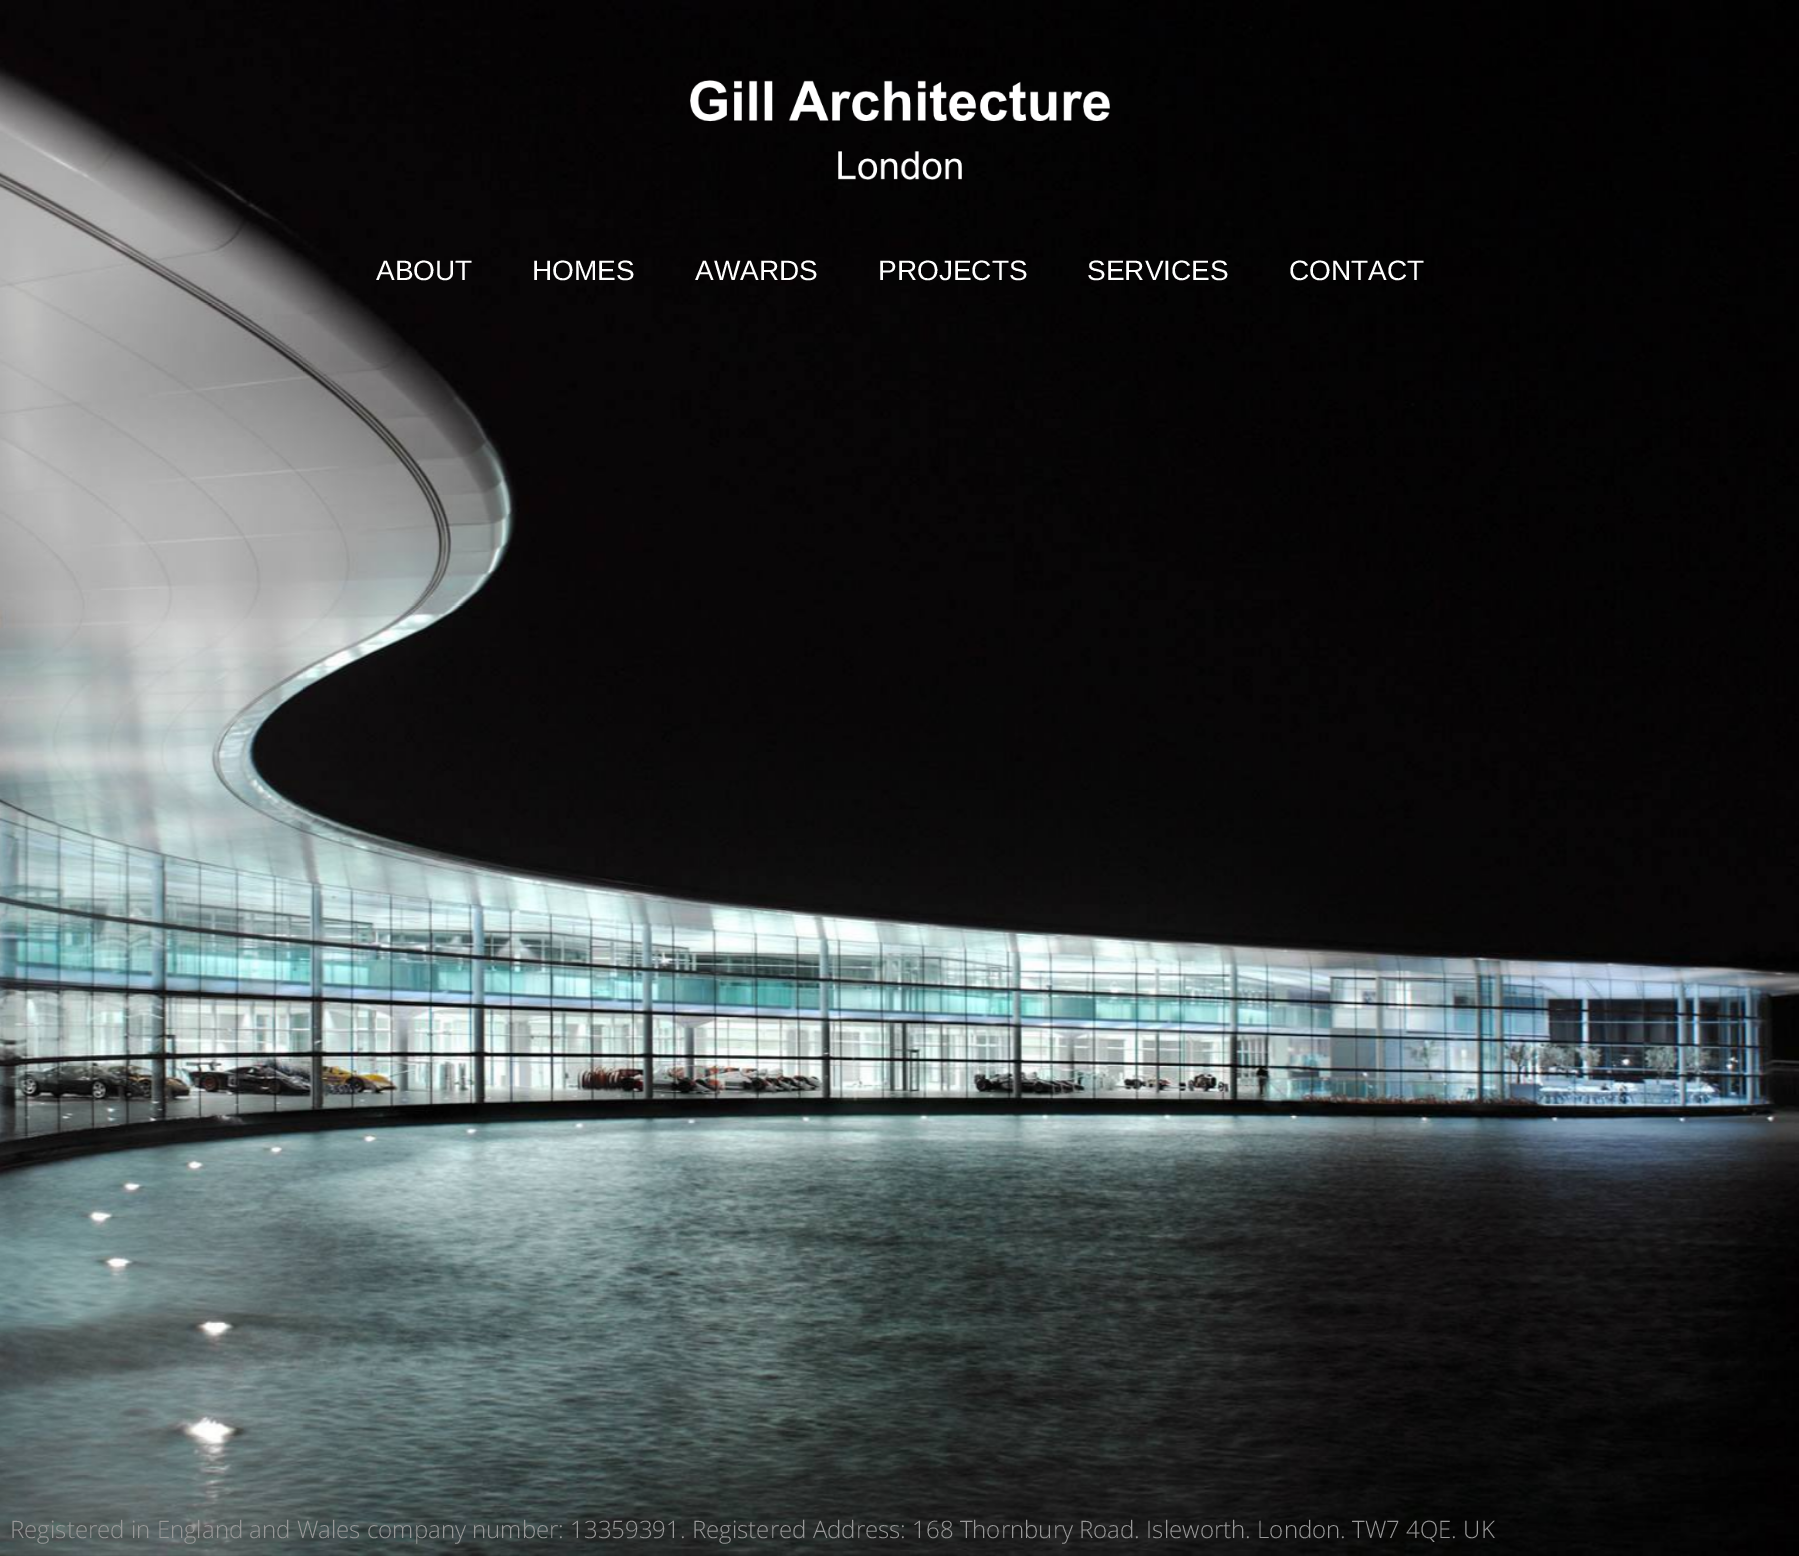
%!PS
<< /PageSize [1799 1556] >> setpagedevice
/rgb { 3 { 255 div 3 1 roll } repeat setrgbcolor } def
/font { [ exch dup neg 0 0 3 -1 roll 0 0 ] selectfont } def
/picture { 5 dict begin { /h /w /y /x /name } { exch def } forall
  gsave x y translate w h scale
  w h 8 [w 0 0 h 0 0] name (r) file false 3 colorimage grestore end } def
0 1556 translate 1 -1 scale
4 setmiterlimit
255 255 255 rgb
0 0 1799 1556 rectfill
(img/1.rgb) 0 0 1799 1556 picture
(img/2.rgb) 690 80 420 100 picture
/LiberationSans-Regular 28 font
[
  [(ABOUT) 376 280]
  [(HOMES) 532 280]
  [(AWARDS) 695 280]
  [(PROJECTS) 878 280]
  [(SERVICES) 1087 280]
  [(CONTACT) 1289 280]
] { aload pop moveto show } forall
/OpenSans-Light 24 font
153 153 153 rgb
10 1538 moveto (Registered in England and Wales company number: 13359391. Registered Address: 168 Thornbury Road. Isleworth. London. TW7 4QE. UK) show
showpage
